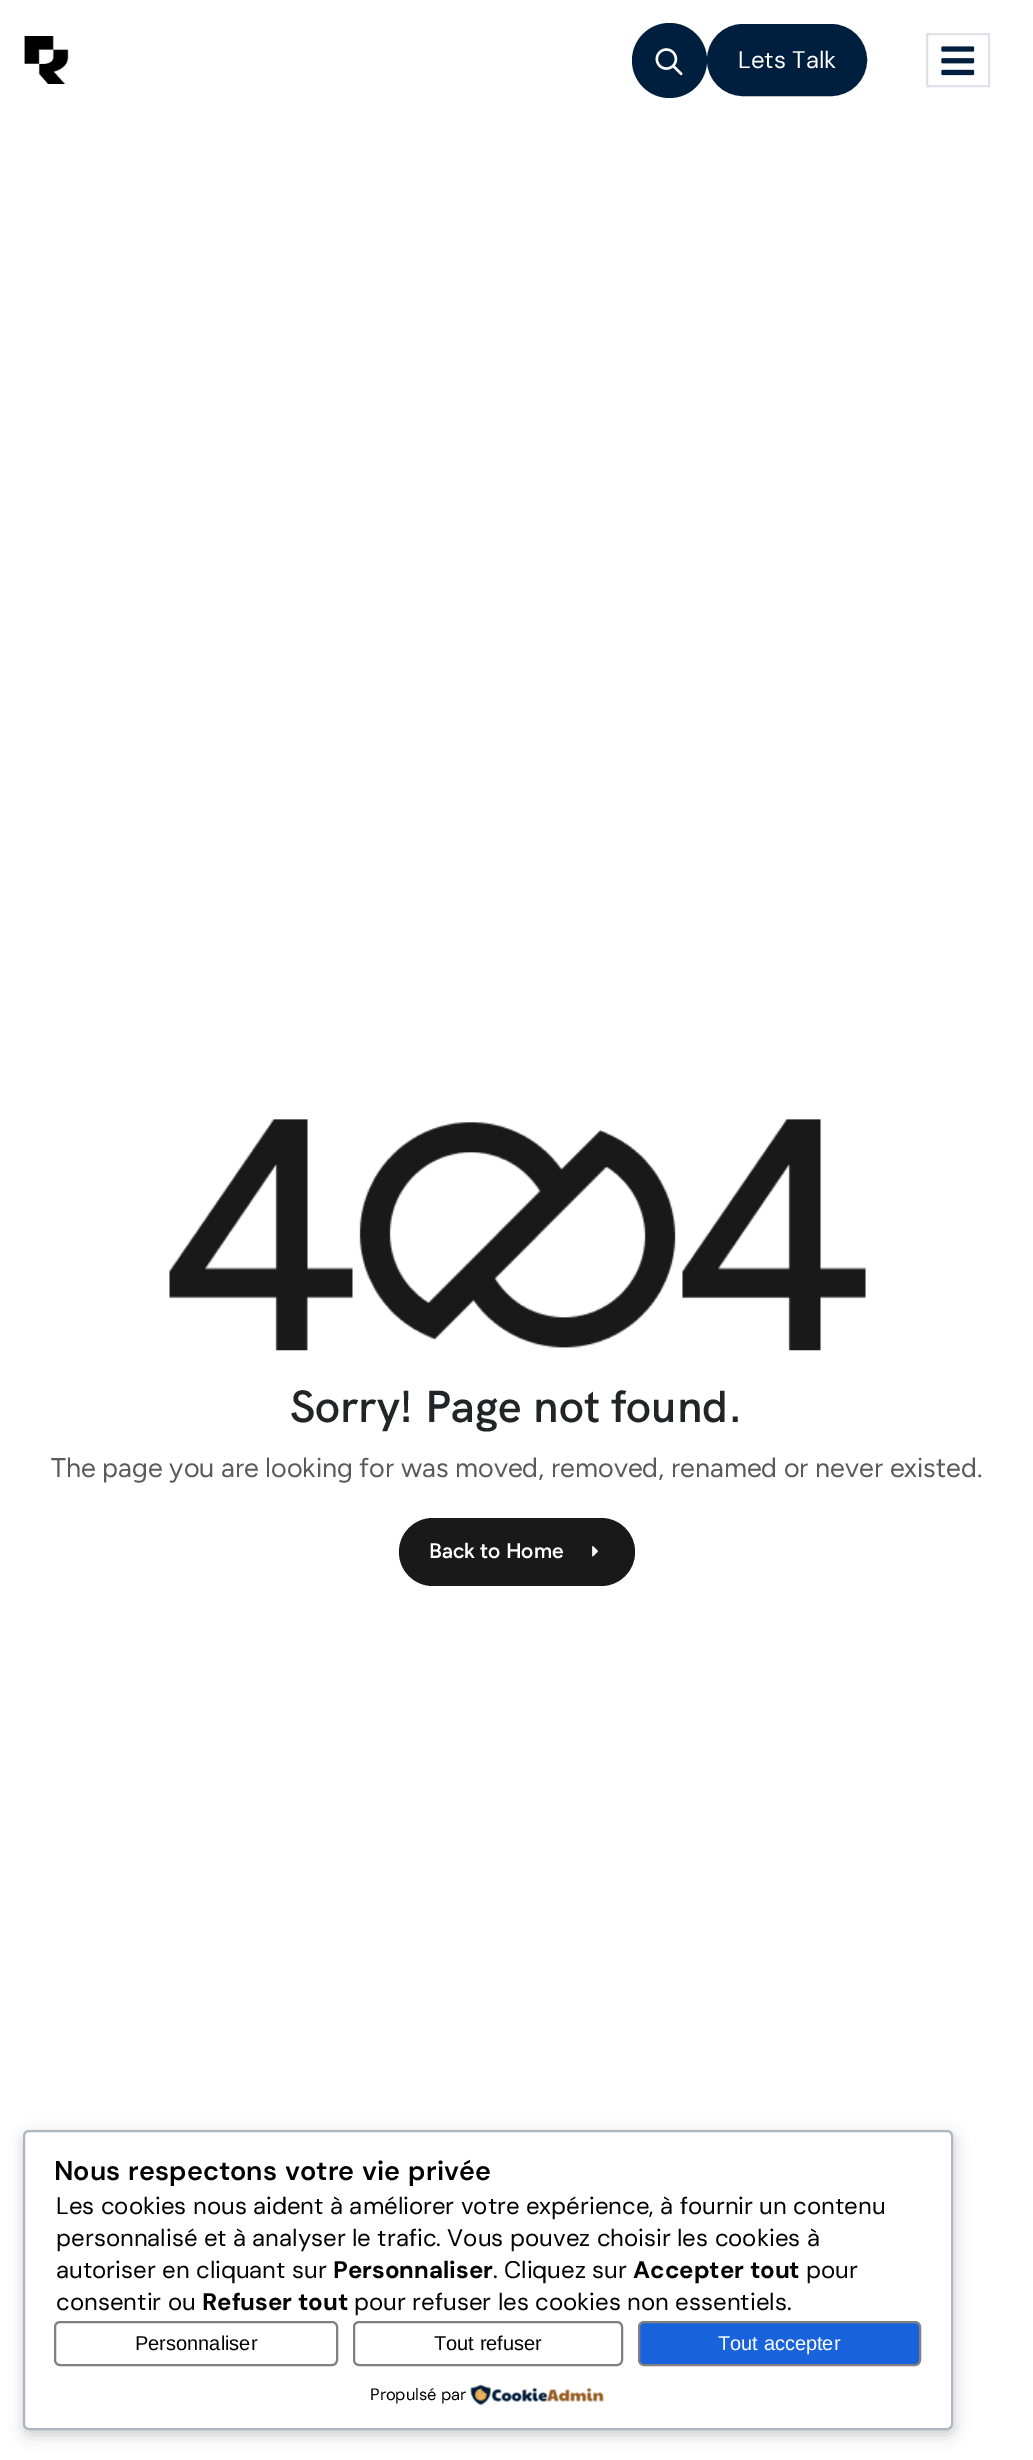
%!PS
<< /PageSize [1033 2460] /PageUsesTransparency true >> setpagedevice
/rgb { 3 { 255 div 3 1 roll } repeat setrgbcolor } def
/font { [ exch dup neg 0 0 3 -1 roll 0 0 ] selectfont } def
/alpha { dup .setfillconstantalpha .setstrokeconstantalpha } def
/circle { newpath 0 360 arc closepath } def
/roundrect { 5 dict begin { /r /h /w /y /x } { exch def } forall
  x r add y moveto x w add y 2 copy h add r arct x w add y h add x 1 index r arct
  x y h add x y r arct x y 2 copy exch w add exch r arct closepath end } def
/shadow { 12 dict begin { /a /b /q /h /w /y /x } { exch def } forall gsave /was 0 def
  9 -2 -9 { dup b mul 4 div /e exch def 1 sub .425 mul 2.718 exch exp 1 add a .99 .min exch div /now exch def
    1 1 now sub 1 was sub div sub alpha /was now def
    w h .min e 2 mul add 0 gt { x e sub y e sub w e 2 mul add h e 2 mul add
      q e add b .6 mul add w h .min 2 div e add .min 0 .max roundrect fill } if } for grestore end } def
/picture { 5 dict begin { /h /w /y /x /name } { exch def } forall
  gsave x y translate w h scale
  w h 8 [w 0 0 h 0 0] name (r) file false 3 colorimage grestore end } def
0 .pushpdf14devicefilter
0 2460 translate 1 -1 scale
4 setmiterlimit
255 255 255 rgb
0 0 1033 2460 rectfill
(img/1.rgb) 24 36 45 48 picture
0 31 63 rgb
669.5 60.5 37.5 circle fill
(img/2.rgb) 655 48 28 28 picture
708 25 158 70 35 roundrect gsave fill grestore
2 setlinewidth
stroke
222 225 231 rgb
927 34 62 52 rectstroke
(img/3.rgb) 941 46 34 30 picture
(img/4.rgb) 169 1119 697 232 picture
25 25 25 rgb
399 1518 236 68 34 roundrect fill
(img/5.rgb) 592 1546 6 11 picture
0 0 0 rgb
24 2135 930 300 6 7.5 0.2 shadow
255 255 255 rgb
24 2131 928 298 5 roundrect gsave fill grestore
171 184 195 rgb
stroke
128 128 128 rgb
55 2322 282 43 5 roundrect stroke
354 2322 268 43 5 roundrect stroke
24 99 220 rgb
639 2322 281 43 5 roundrect gsave fill grestore
128 128 128 rgb
stroke
(img/6.rgb) 470 2384 134 22 picture
/DMSans-Regular 24 font
255 255 255 rgb
738 68 moveto (Lets Talk) show
/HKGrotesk-SemiBold 45 font
35 36 39 rgb
290 1422 moveto (Sorry! Page not found.) show
/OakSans-Regular 27 font
90 90 90 rgb
51 1477 moveto (The page you are looking for was moved, removed, renamed or never existed.) show
/OakSans-SemiBold 21 font
255 255 255 rgb
429 1558 moveto (Back to Home) show
/DMSans-SemiBold 27 font
0 0 0 rgb
54 2180 moveto 1.5 0 32 (Nous respectons votre vie privée) widthshow
/DMSans-Regular 24 font
[
  [(Les cookies nous aident à améliorer votre expérience, à fournir un contenu) 56 2214]
  [(personnalisé et à analyser le trafic. Vous pouvez choisir les cookies à) 56 2246]
  [(autoriser en cliquant sur) 56 2278]
] { aload pop moveto show } forall
/DMSans-Bold 24 font
333 2278 moveto (Personnaliser) show
/DMSans-Regular 24 font
493 2278 moveto (. Cliquez sur) show
/DMSans-Bold 24 font
633 2278 moveto (Accepter tout) show
/DMSans-Regular 24 font
806 2278 moveto (pour) show
56 2310 moveto (consentir ou) show
/DMSans-Bold 24 font
202 2310 moveto (Refuser tout) show
/DMSans-Regular 24 font
354 2310 moveto (pour refuser les cookies non essentiels.) show
/LiberationSans-Regular 20 font
135 2350 moveto (Personnaliser) show
434 2350 moveto (Tout refuser) show
255 255 255 rgb
718 2350 moveto (Tout accepter) show
/DMSans-Regular 16.5 font
0 0 0 rgb
370 2400 moveto (Propulsé par) show
.poppdf14devicefilter showpage
